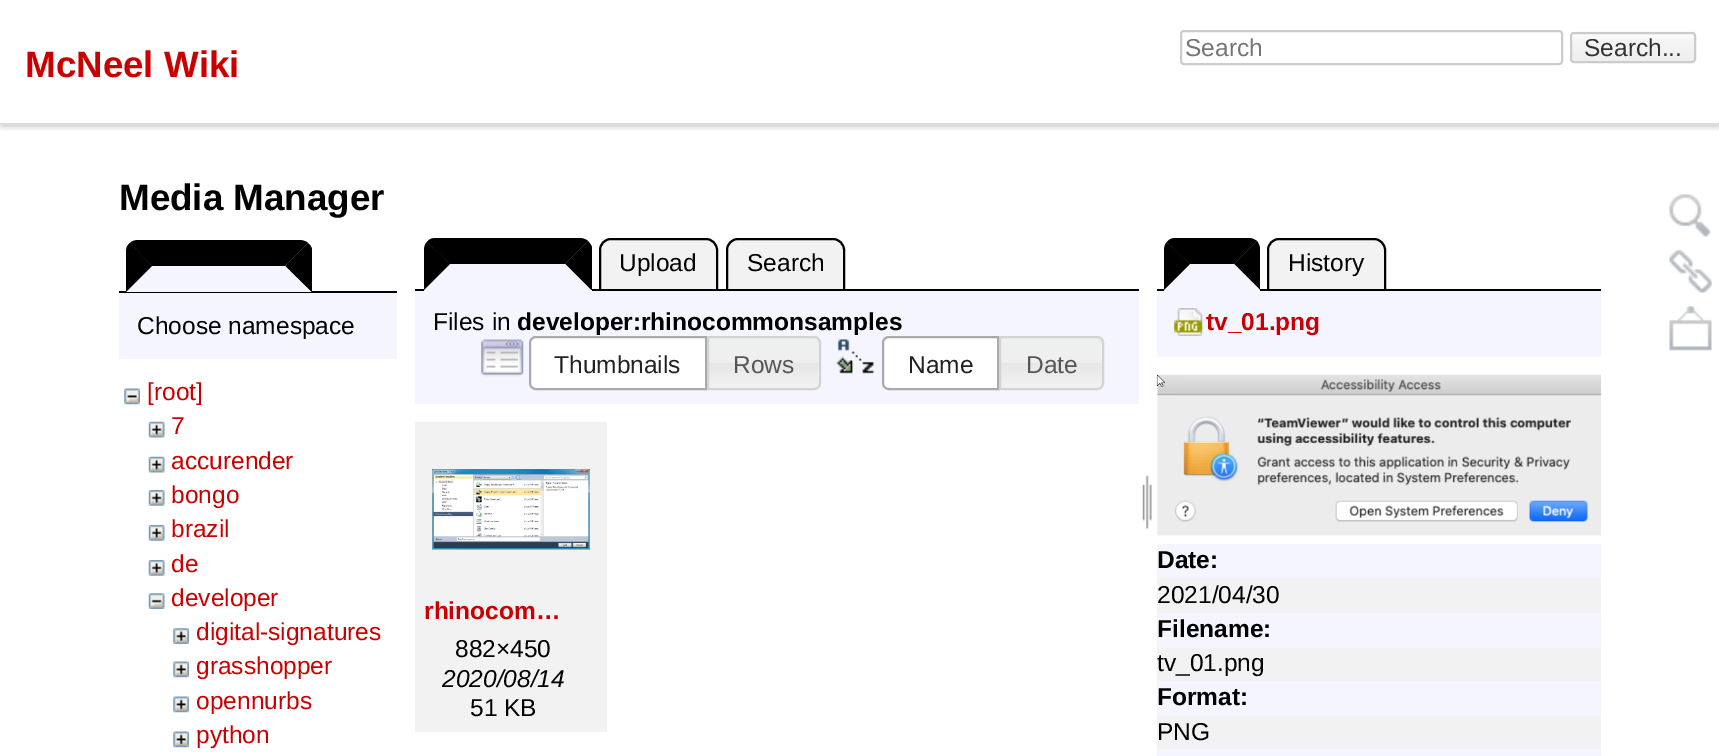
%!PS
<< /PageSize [1719 756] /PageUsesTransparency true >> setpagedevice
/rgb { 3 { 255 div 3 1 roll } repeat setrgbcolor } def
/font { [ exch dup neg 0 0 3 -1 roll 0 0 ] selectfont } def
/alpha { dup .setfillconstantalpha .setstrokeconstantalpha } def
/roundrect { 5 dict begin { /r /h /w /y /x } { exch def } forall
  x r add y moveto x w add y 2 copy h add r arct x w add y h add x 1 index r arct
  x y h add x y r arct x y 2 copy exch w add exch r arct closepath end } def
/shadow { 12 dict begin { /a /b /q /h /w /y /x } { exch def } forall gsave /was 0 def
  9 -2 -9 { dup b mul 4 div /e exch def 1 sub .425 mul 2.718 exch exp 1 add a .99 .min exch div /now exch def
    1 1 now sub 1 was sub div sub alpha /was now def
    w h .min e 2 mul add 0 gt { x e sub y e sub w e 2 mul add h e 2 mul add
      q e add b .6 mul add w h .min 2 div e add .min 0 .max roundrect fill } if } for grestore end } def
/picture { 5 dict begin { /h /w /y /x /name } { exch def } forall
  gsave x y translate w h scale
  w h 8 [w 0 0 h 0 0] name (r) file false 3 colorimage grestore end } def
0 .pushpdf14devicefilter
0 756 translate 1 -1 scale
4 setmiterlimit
255 255 255 rgb
0 0 1719 756 rectfill
gsave
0 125 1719 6 rectclip
0 0 0 rgb
2 5 1717 121 0 3.5 0.25 shadow
grestore
221 221 221 rgb
0 123 1719 2 rectfill
204 204 204 rgb
2 setlinewidth
1181 31 381 33 3 roundrect stroke
(img/1.rgb) 1570 31 126 32 picture
1571 33 124 29 3 roundrect stroke
0 0 0 rgb
119 291 278 2 rectfill
245 245 255 rgb
138 240 moveto 300 240 lineto 306.5 240 312 245.5 312 252 curveto 312 292 lineto 126 292 lineto 126 252 lineto 126 245.5 131.5 240 138 240 curveto closepath fill
0 0 0 rgb
138 240 moveto 135 240 132 241 130 243 curveto 152 266 lineto 285 266 lineto 308 243 lineto 306 241 302 240 299 240 curveto closepath fill
312 292 moveto 285 266 lineto 308 243 lineto 310 245 311 246 312 249 curveto closepath fill
245 245 255 rgb
311 292 moveto 285 266 lineto 152 266 lineto 126 292 lineto closepath fill
0 0 0 rgb
126 252 moveto 126 248 127 245 130 243 curveto 152 266 lineto 126 292 lineto closepath fill
245 245 255 rgb
119 293 278 66 rectfill
(img/2.rgb) 124 388 16 17 picture
(img/3.rgb) 148 421 17 17 picture
(img/3.rgb) 148 456 17 17 picture
(img/4.rgb) 148 490 17 16 picture
(img/4.rgb) 148 525 17 16 picture
(img/4.rgb) 148 560 17 16 picture
(img/5.rgb) 148 593 17 16 picture
(img/6.rgb) 173 628 16 16 picture
(img/7.rgb) 173 661 16 17 picture
(img/7.rgb) 173 696 16 17 picture
(img/7.rgb) 173 731 16 17 picture
242 242 242 rgb
611 239 moveto 706 239 lineto 712 239 717 244 717 250 curveto 717 290 lineto 600 290 lineto 600 250 lineto 600 244 605 239 611 239 curveto closepath gsave fill grestore
0 0 0 rgb
stroke
242 242 242 rgb
738 239 moveto 833 239 lineto 839 239 844 244 844 250 curveto 844 290 lineto 727 290 lineto 727 250 lineto 727 244 732 239 738 239 curveto closepath gsave fill grestore
0 0 0 rgb
stroke
415 289 724 2 rectfill
245 245 255 rgb
436 238 moveto 580 238 lineto 586.5 238 592 243.5 592 250 curveto 592 291 lineto 424 291 lineto 424 250 lineto 424 243.5 429.5 238 436 238 curveto closepath fill
0 0 0 rgb
436 238 moveto 579 238 lineto 582 238 586 239 588 241 curveto 565 264 lineto 450 264 lineto 427 242 lineto 429 239 432 238 436 238 curveto closepath fill
588 241 moveto 565 264 lineto 591 290 lineto 592 290 lineto 592 247 lineto 591 245 590 243 588 241 curveto closepath fill
245 245 255 rgb
591 290 moveto 565 264 lineto 450 264 lineto 424 290 lineto closepath fill
0 0 0 rgb
427 242 moveto 425 244 424 247 424 250 curveto 424 290 lineto 450 264 lineto closepath fill
245 245 255 rgb
415 291 724 113 rectfill
(img/8.rgb) 481 339 43 38 picture
255 255 255 rgb
536 336 moveto 707 336 lineto 707 390 lineto 536 390 lineto 532 390 529 387 529 383 curveto 529 343 lineto 529 339 532 336 536 336 curveto closepath fill
(img/9.rgb) 529 337 5 53 picture
170 170 170 rgb
536 337 moveto 706 337 lineto 706 389 lineto 536 389 lineto 532.5 389 530 386.5 530 383 curveto 530 343 lineto 530 339.5 532.5 337 536 337 curveto closepath stroke
(img/10.rgb) 709 336 112 54 picture
211 211 211 rgb
708 337 moveto 814 337 lineto 817.5 337 820 339.5 820 343 curveto 820 383 lineto 820 386.5 817.5 389 814 389 curveto 708 389 lineto closepath stroke
(img/11.rgb) 836 339 38 35 picture
255 255 255 rgb
889 336 moveto 999 336 lineto 999 390 lineto 889 390 lineto 885 390 882 387 882 383 curveto 882 343 lineto 882 339 885 336 889 336 curveto closepath fill
253 253 255 rgb
884 388 1 1 rectfill
170 170 170 rgb
889 337 moveto 998 337 lineto 998 389 lineto 889 389 lineto 885.5 389 883 386.5 883 383 curveto 883 343 lineto 883 339.5 885.5 337 889 337 curveto closepath stroke
(img/12.rgb) 1001 336 103 54 picture
211 211 211 rgb
1000 337 moveto 1097 337 lineto 1100.5 337 1103 339.5 1103 343 curveto 1103 383 lineto 1103 386.5 1100.5 389 1097 389 curveto 1000 389 lineto closepath stroke
(img/13.rgb) 1142 474 10 55 picture
242 242 242 rgb
415 422 192 310 rectfill
(img/14.rgb) 432 469 158 81 picture
1279 239 moveto 1374 239 lineto 1380 239 1385 244 1385 250 curveto 1385 290 lineto 1268 290 lineto 1268 250 lineto 1268 244 1273 239 1279 239 curveto closepath gsave fill grestore
0 0 0 rgb
stroke
1157 289 444 2 rectfill
245 245 255 rgb
1176 238 moveto 1248 238 lineto 1254.5 238 1260 243.5 1260 250 curveto 1260 291 lineto 1164 291 lineto 1164 250 lineto 1164 243.5 1169.5 238 1176 238 curveto closepath fill
0 0 0 rgb
1176 238 moveto 1248 238 lineto 1252 238 1254 239 1257 241 curveto 1234 264 lineto 1190 264 lineto 1167 242 lineto 1169 239 1172 238 1176 238 curveto closepath fill
1257 241 moveto 1234 264 lineto 1260 290 lineto 1260 250 lineto 1260 246 1259 244 1257 241 curveto closepath fill
245 245 255 rgb
1260 290 moveto 1234 264 lineto 1190 264 lineto 1164 290 lineto closepath fill
0 0 0 rgb
1167 242 moveto 1165 244 1164 247 1164 250 curveto 1164 290 lineto 1190 264 lineto closepath fill
245 245 255 rgb
1157 291 444 66 rectfill
(img/15.rgb) 1174 308 29 28 picture
(img/16.rgb) 1156 374 446 162 picture
[
  [1157 544 444 34 245 245 255]
  [1157 578 444 35 242 242 242]
  [1157 613 444 35 245 245 255]
  [1157 648 444 33 242 242 242]
  [1157 681 444 35 245 245 255]
  [1157 716 444 33 242 242 242]
  [1157 749 444 7 245 245 255]
] { aload pop rgb rectfill } forall
(img/17.rgb) 1669 194 43 43 picture
(img/18.rgb) 1669 249 43 44 picture
(img/19.rgb) 1669 306 43 45 picture
/LiberationSans-Regular 24.5 font
117 117 117 rgb
1185 56 moveto (Search) show
51 51 51 rgb
1584 56 moveto (Search...) show
/LiberationSans-Bold 36.75 font
202 0 0 rgb
25 77 moveto (McNeel Wiki) show
0 0 0 rgb
119 210 moveto (Media Manager) show
/LiberationSans-Regular 24.5 font
137 334 moveto (Choose namespace) show
202 0 0 rgb
[
  [([root]) 147 400]
  [(7) 171 434]
  [(accurender) 171 469]
  [(bongo) 171 503]
  [(brazil) 171 537]
  [(de) 171 572]
  [(developer) 171 606]
  [(digital-signatures) 196 640]
  [(grasshopper) 196 674]
  [(opennurbs) 196 709]
  [(python) 196 743]
] { aload pop moveto show } forall
0 0 0 rgb
[
  [(Upload) 619 271]
  [(Search) 747 271]
  [(Files in) 433 330]
] { aload pop moveto show } forall
/LiberationSans-Bold 24.5 font
517 330 moveto (developer:rhinocommonsamples) show
/LiberationSans-Regular 24.5 font
33 33 33 rgb
554 373 moveto (Thumbnails) show
85 85 85 rgb
733 373 moveto (Rows) show
33 33 33 rgb
908 373 moveto (Name) show
85 85 85 rgb
1026 373 moveto (Date) show
/LiberationSans-Bold 24.5 font
202 0 0 rgb
424 619 moveto (rhinocom…) show
/LiberationSans-Regular 24.5 font
0 0 0 rgb
455 657 moveto (882×450) show
/LiberationSans-Italic 24.5 font
442 687 moveto (2020/08/14) show
/LiberationSans-Regular 24.5 font
470 716 moveto (51 KB) show
1288 271 moveto (History) show
/LiberationSans-Bold 24.5 font
202 0 0 rgb
1206 330 moveto (tv_01.png) show
0 0 0 rgb
1157 568 moveto (Date:) show
/LiberationSans-Regular 24.5 font
1157 603 moveto (2021/04/30) show
/LiberationSans-Bold 24.5 font
1157 637 moveto (Filename:) show
/LiberationSans-Regular 24.5 font
1157 671 moveto (tv_01.png) show
/LiberationSans-Bold 24.5 font
1157 705 moveto (Format:) show
/LiberationSans-Regular 24.5 font
1157 740 moveto (PNG) show
.poppdf14devicefilter showpage
